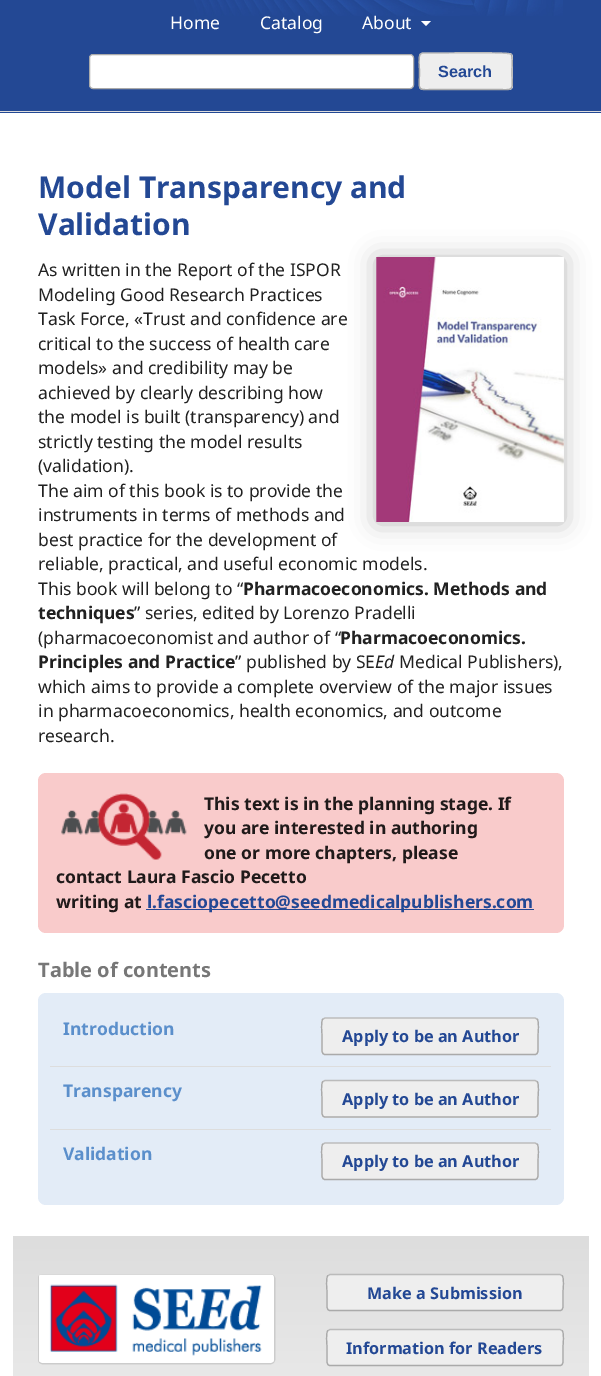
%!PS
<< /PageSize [601 1376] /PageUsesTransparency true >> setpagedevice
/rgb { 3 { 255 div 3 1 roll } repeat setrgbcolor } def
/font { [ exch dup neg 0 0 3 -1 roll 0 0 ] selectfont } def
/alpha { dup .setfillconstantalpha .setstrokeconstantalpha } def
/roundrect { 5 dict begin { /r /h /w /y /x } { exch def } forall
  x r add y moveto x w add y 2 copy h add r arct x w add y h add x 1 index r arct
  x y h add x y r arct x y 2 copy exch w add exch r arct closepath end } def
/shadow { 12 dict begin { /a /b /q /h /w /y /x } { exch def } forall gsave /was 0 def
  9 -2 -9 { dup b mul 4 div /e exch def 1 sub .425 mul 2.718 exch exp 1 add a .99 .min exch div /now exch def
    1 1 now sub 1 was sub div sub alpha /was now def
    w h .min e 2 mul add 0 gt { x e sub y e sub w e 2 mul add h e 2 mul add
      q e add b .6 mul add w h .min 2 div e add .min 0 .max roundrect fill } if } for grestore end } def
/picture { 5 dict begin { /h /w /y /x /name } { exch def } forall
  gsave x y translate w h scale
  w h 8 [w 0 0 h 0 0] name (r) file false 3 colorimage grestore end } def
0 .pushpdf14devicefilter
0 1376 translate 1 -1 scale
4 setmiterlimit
255 255 255 rgb
0 0 601 1376 rectfill
35 72 148 rgb
0 0 601 113 rectfill
221 221 221 rgb
0 111 601 1 rectfill
(img/1.rgb) 194 0 369 16 picture
255 255 255 rgb
421 21 moveto 431 21 lineto 426 26 lineto closepath fill
89.5 54.5 324 34 3.5 roundrect gsave fill grestore
170 170 170 rgb
stroke
238 238 238 rgb
419 53 94 37 4 roundrect fill
187 187 187 rgb
1.2 setlinewidth
420.5 54 moveto 422.5 53 lineto 437 53 lineto 445 53 508.5 52 510.5 54 curveto 511 54 lineto stroke
170 170 170 rgb
511 54 moveto 513 56 512 68 512 71 curveto 512 92.5 516 89.5 494.5 89.5 curveto 437 89.5 lineto 415.5 89.5 419.5 92.5 419.5 71 curveto 419.5 68 418 56 420.5 54 curveto stroke
187 187 187 rgb
376 258 188 265 0 12.5 1 shadow
(img/2.rgb) 376 257 188 265 picture
249 203 203 rgb
38 773 526 160 8 roundrect fill
(img/3.rgb) 61 793 126 67 picture
35 72 148 rgb
146 909 388 1 rectfill
227 236 247 rgb
38 993 526 212 8 roundrect fill
221 221 221 rgb
50 1066 501 1 rectfill
238 238 238 rgb
321 1018 218 37 4 roundrect fill
187 187 187 rgb
323 1019 moveto 325 1018 lineto 535 1018 lineto 537 1019 lineto stroke
170 170 170 rgb
537 1019 moveto 539.5 1021 538 1033 538 1036 curveto 538 1046 lineto 538 1048.5 539 1054.5 535 1054.5 curveto 325 1054.5 lineto 321 1054.5 322 1048.5 322 1046 curveto 322 1036 lineto 322 1033 320.5 1021 323 1019 curveto stroke
221 221 221 rgb
50 1129 501 1 rectfill
238 238 238 rgb
321 1080 218 38 4 roundrect fill
187 187 187 rgb
323 1081.5 moveto 325 1080.5 lineto 535 1080.5 lineto 537 1081.5 lineto stroke
170 170 170 rgb
537 1081.5 moveto 539.5 1083.5 538 1095.5 538 1099 curveto 538 1109 lineto 538 1111 539 1117 535 1117 curveto 325 1117 lineto 321 1117 322 1111 322 1109 curveto 322 1099 lineto 322 1095.5 320.5 1083.5 323 1081.5 curveto stroke
238 238 238 rgb
321 1143 218 37 4 roundrect fill
187 187 187 rgb
323 1144 moveto 325 1143 lineto 535 1143 lineto 537 1144 lineto stroke
170 170 170 rgb
537 1144 moveto 539.5 1146 538 1158 538 1161 curveto 538 1171 lineto 538 1173.5 539 1179.5 535 1179.5 curveto 325 1179.5 lineto 321 1179.5 322 1173.5 322 1171 curveto 322 1161 lineto 322 1158 320.5 1146 323 1144 curveto stroke
gsave 13 1236 moveto 589 1236 lineto 589 1376 lineto 13 1376 lineto closepath clip newpath
<< /ShadingType 2 /ColorSpace /DeviceRGB /Coords [301 1236 301 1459] /Extend [true true] /Function << /FunctionType 2 /Domain [0 1] /C0 [0.867 0.867 0.867] /C1 [0.937 0.937 0.937] /N 1 >> >> shfill grestore
255 255 255 rgb
38 1274 237 90 4 roundrect fill
0.2 alpha
0 0 0 rgb
1 setlinewidth
38.5 1274.5 236 89 3.5 roundrect stroke
1 alpha
(img/4.rgb) 39 1274 235 88 picture
238 238 238 rgb
326 1274 238 37 4 roundrect fill
187 187 187 rgb
1.2 setlinewidth
328 1275.5 moveto 330 1274.5 lineto 560 1274.5 lineto 562 1275.5 lineto stroke
170 170 170 rgb
562 1275.5 moveto 564.5 1277.5 563 1289.5 563 1292.5 curveto 563 1302.5 lineto 563 1305 564 1310.5 560 1310.5 curveto 330 1310.5 lineto 326 1310.5 327 1305 327 1302.5 curveto 327 1292.5 lineto 327 1289.5 325.5 1277.5 328 1275.5 curveto stroke
238 238 238 rgb
326 1329 238 37 4 roundrect fill
187 187 187 rgb
328 1330.5 moveto 330 1329.5 lineto 560 1329.5 lineto 562 1330.5 lineto stroke
170 170 170 rgb
562 1330.5 moveto 564.5 1332.5 563 1344.5 563 1347.5 curveto 563 1357.5 lineto 563 1360 564 1365.5 560 1365.5 curveto 330 1365.5 lineto 326 1365.5 327 1360 327 1357.5 curveto 327 1347.5 lineto 327 1344.5 325.5 1332.5 328 1330.5 curveto stroke
/NotoSans-Regular 17.5 font
255 255 255 rgb
[
  [(Home) 170 29]
  [(Catalog) 260 29]
  [(About) 362 29]
] { aload pop moveto show } forall
/LiberationSans-Bold 16.25 font
35 72 148 rgb
438 77 moveto (Search) show
/NotoSans-Bold 30 font
38 198 moveto (Model Transparency and) show
38 235 moveto (Validation) show
/NotoSans-Regular 17.5 font
33 33 33 rgb
[
  [(As written in the Report of the ISPOR) 38 276]
  [(Modeling Good Research Practices) 38 301]
  [(Task Force, «Trust and confidence are) 38 325]
  [(critical to the success of health care) 38 350]
  [(models» and credibility may be) 38 374]
  [(achieved by clearly describing how) 38 399]
  [(the model is built \(transparency\) and) 38 423]
  [(strictly testing the model results) 38 448]
  [(\(validation\).) 38 472]
  [(The aim of this book is to provide the) 38 497]
  [(instruments in terms of methods and) 38 521]
  [(best practice for the development of) 38 546]
  [(reliable, practical, and useful economic models.) 38 570]
  [(This book will belong to “) 38 595]
] { aload pop moveto show } forall
/NotoSans-Bold 17.5 font
243 595 moveto (Pharmacoeconomics. Methods and) show
38 619 moveto (techniques) show
/NotoSans-Regular 17.5 font
134 619 moveto (” series, edited by Lorenzo Pradelli) show
38 644 moveto (\(pharmacoeconomist and author of “) show
/NotoSans-Bold 17.5 font
340 644 moveto (Pharmacoeconomics.) show
38 668 moveto (Principles and Practice) show
/NotoSans-Regular 17.5 font
235 668 moveto (” published by SE) show
/NotoSans-Italic 17.5 font
375 668 moveto (Ed) show
/NotoSans-Regular 17.5 font
[
  [(Medical Publishers\),) 399 668]
  [(which aims to provide a complete overview of the major issues) 38 693]
  [(in pharmacoeconomics, health economics, and outcome) 38 717]
  [(research.) 38 742]
] { aload pop moveto show } forall
/NotoSans-Bold 17.5 font
32 26 26 rgb
[
  [(This text is in the planning stage. If) 204 810]
  [(you are interested in authoring) 204 834]
  [(one or more chapters, please) 204 859]
  [(contact Laura Fascio Pecetto) 56 883]
  [(writing at) 56 908]
] { aload pop moveto show } forall
35 72 148 rgb
147 908 moveto (l.fasciopecetto@seedmedicalpublishers.com) show
/NotoSans-Bold 20 font
119 119 119 rgb
38 977 moveto (Table of contents) show
/NotoSans-Bold 17.5 font
91 143 203 rgb
63 1035 moveto (Introduction) show
/NotoSans-Bold 16.25 font
35 72 148 rgb
342 1042 moveto (Apply to be an Author) show
/NotoSans-Bold 17.5 font
91 143 203 rgb
63 1097 moveto (Transparency) show
/NotoSans-Bold 16.25 font
35 72 148 rgb
342 1105 moveto (Apply to be an Author) show
/NotoSans-Bold 17.5 font
91 143 203 rgb
63 1160 moveto (Validation) show
/NotoSans-Bold 16.25 font
35 72 148 rgb
[
  [(Apply to be an Author) 342 1167]
  [(Make a Submission) 367 1299]
  [(Information for Readers) 346 1354]
] { aload pop moveto show } forall
.poppdf14devicefilter showpage
